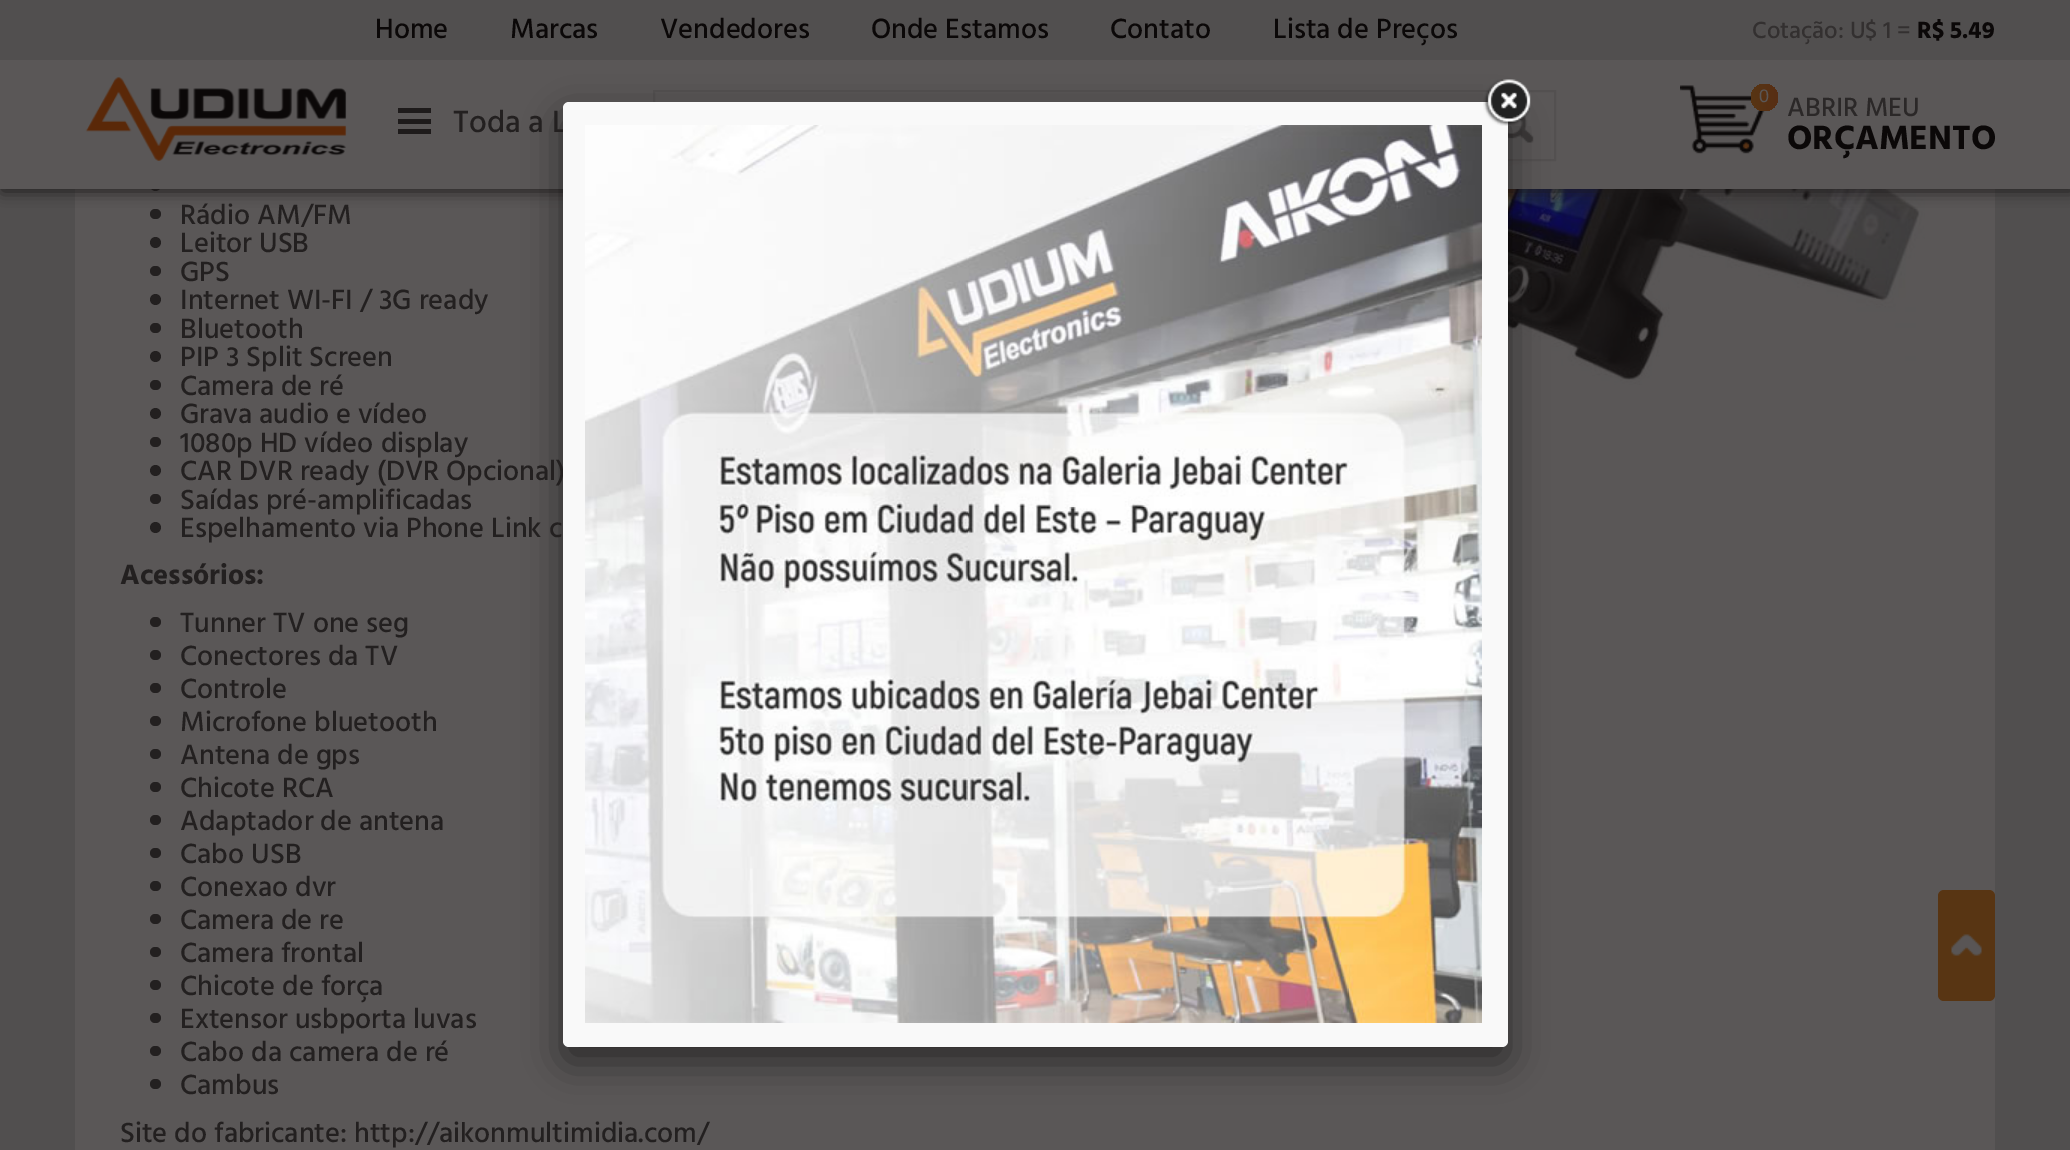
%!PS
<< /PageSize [2070 1150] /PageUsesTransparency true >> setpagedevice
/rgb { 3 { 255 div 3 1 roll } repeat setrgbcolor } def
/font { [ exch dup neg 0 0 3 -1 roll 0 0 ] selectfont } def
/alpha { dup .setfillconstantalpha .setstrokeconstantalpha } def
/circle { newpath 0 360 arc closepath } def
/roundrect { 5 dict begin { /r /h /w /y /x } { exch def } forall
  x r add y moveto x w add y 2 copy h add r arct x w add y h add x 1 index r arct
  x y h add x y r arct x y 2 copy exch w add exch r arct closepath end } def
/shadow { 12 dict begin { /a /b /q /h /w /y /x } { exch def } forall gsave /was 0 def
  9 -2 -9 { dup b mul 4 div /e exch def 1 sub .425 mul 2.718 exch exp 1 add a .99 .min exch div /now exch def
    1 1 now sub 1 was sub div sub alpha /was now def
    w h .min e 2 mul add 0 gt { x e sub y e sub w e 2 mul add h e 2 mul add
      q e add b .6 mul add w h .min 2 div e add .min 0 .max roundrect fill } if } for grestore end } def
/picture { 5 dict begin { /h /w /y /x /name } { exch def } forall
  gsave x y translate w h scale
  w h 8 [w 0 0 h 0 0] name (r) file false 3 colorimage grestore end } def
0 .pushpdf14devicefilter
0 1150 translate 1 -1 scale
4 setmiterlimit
81 79 79 rgb
0 0 2070 1150 rectfill
90 87 87 rgb
75 189 1920 961 rectfill
35 32 32 rgb
155.5 185.5 5.5 circle fill
150 209 11 10 5 roundrect fill
(img/5.rgb) 1508 189 417 196 picture
27 24 24 rgb
2 2 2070 189 0 7.5 1 shadow
90 87 87 rgb
0 60 2070 129 rectfill
81 79 79 rgb
0 0 2070 60 rectfill
(img/1.rgb) 85 77 262 84 picture
[
  [398 108 33 5 30 27 27]
  [398 119 33 5 30 27 27]
  [398 129 33 5 30 27 27]
] { aload pop rgb rectfill } forall
(img/2.rgb) 1508 161 20 5 picture
83 80 80 rgb
2 setlinewidth
654 91 901 69 rectstroke
(img/3.rgb) 1508 113 26 30 picture
(img/4.rgb) 1680 85 85 69 picture
gsave 1764.5 97.5 13.5 circle clip newpath
<< /ShadingType 2 /ColorSpace /DeviceRGB /Coords [1751 98 1778 98] /Extend [true true] /Function << /FunctionType 2 /Domain [0 1] /C0 [0.345 0.208 0.075] /C1 [0.341 0.18 0.078] /N 1 >> >> shfill grestore
35 32 32 rgb
155.5 242.5 5.5 circle fill
150 266 11 10 5 roundrect fill
155.5 299.5 5.5 circle fill
150 323 11 10 5 roundrect fill
155.5 356.5 5.5 circle fill
150 380 11 10 5 roundrect fill
155.5 413.5 5.5 circle fill
150 437 11 10 5 roundrect fill
155.5 470.5 5.5 circle fill
150 494 11 10 5 roundrect fill
155.5 527.5 5.5 circle fill
150 617 11 10 5 roundrect fill
150 650 11 10 5 roundrect fill
150 683 11 10 5 roundrect fill
150 716 11 10 5 roundrect fill
150 749 11 10 5 roundrect fill
150 782 11 10 5 roundrect fill
150 815 11 10 5 roundrect fill
150 848 11 10 5 roundrect fill
150 881 11 10 5 roundrect fill
150 914 11 10 5 roundrect fill
150 947 11 10 5 roundrect fill
150 980 11 10 5 roundrect fill
150 1013 11 10 5 roundrect fill
150 1046 11 10 5 roundrect fill
150 1079 11 10 5 roundrect fill
0 0 0 rgb
563 117 945 945 6 19 0.5 shadow
88 53 19 rgb
1938 890 57 111 6 roundrect fill
(img/8.rgb) 1951 934 31 22 picture
/Hind-Medium 28.5 font
11 8 8 rgb
[
  [(Home) 375 38]
  [(Marcas) 510 38]
  [(Vendedores) 660 38]
  [(Onde Estamos) 871 38]
  [(Contato) 1110 38]
  [(Lista de Preços) 1273 38]
] { aload pop moveto show } forall
/Hind-Medium 24 font
51 48 48 rgb
1752 38 moveto (Cotação: U$ 1 =) show
/Hind-Bold 24 font
11 8 8 rgb
1917 38 moveto (R$ 5.49) show
/Hind-Medium 31.5 font
35 32 32 rgb
453 132 moveto (Toda a L) show
/LiberationSans-Regular 18 font
90 87 87 rgb
1759 102 moveto (0) show
/Hind-Medium 27 font
43 40 40 rgb
1787 116 moveto (ABRIR MEU) show
/Hind-Bold 34.5 font
11 8 8 rgb
1787 149 moveto (ORÇAMENTO) show
/Hind-Medium 28.5 font
35 32 32 rgb
[
  [(Rádio AM/FM) 180 224]
  [(Leitor USB) 180 252]
  [(GPS) 180 281]
  [(Internet WI-FI / 3G ready) 180 309]
  [(Bluetooth) 180 338]
  [(PIP 3 Split Screen) 180 366]
  [(Camera de ré) 180 395]
  [(Grava audio e vídeo) 180 423]
  [(1080p HD vídeo display) 180 452]
  [(CAR DVR ready \(DVR Opcional\)) 180 480]
  [(Saídas pré-amplificadas) 180 509]
  [(Espelhamento via Phone Link c) 180 537]
] { aload pop moveto show } forall
/Hind-Bold 28.5 font
120 584 moveto (Acessórios:) show
/Hind-Medium 28.5 font
[
  [(Tunner TV one seg) 180 632]
  [(Conectores da TV) 180 665]
  [(Controle) 180 698]
  [(Microfone bluetooth) 180 731]
  [(Antena de gps) 180 764]
  [(Chicote RCA) 180 797]
  [(Adaptador de antena) 180 830]
  [(Cabo USB) 180 863]
  [(Conexao dvr) 180 896]
  [(Camera de re) 180 929]
  [(Camera frontal) 180 962]
  [(Chicote de força) 180 995]
  [(Extensor usbporta luvas) 180 1028]
  [(Cabo da camera de ré) 180 1061]
  [(Cambus) 180 1094]
  [(Site do fabricante: http://aikonmultimidia.com/) 120 1142]
] { aload pop moveto show } forall
249 249 249 rgb
563 102 945 945 6 roundrect fill
(img/6.rgb) 1483 79 48 47 picture
(img/7.rgb) 585 125 897 898 picture
.poppdf14devicefilter showpage
